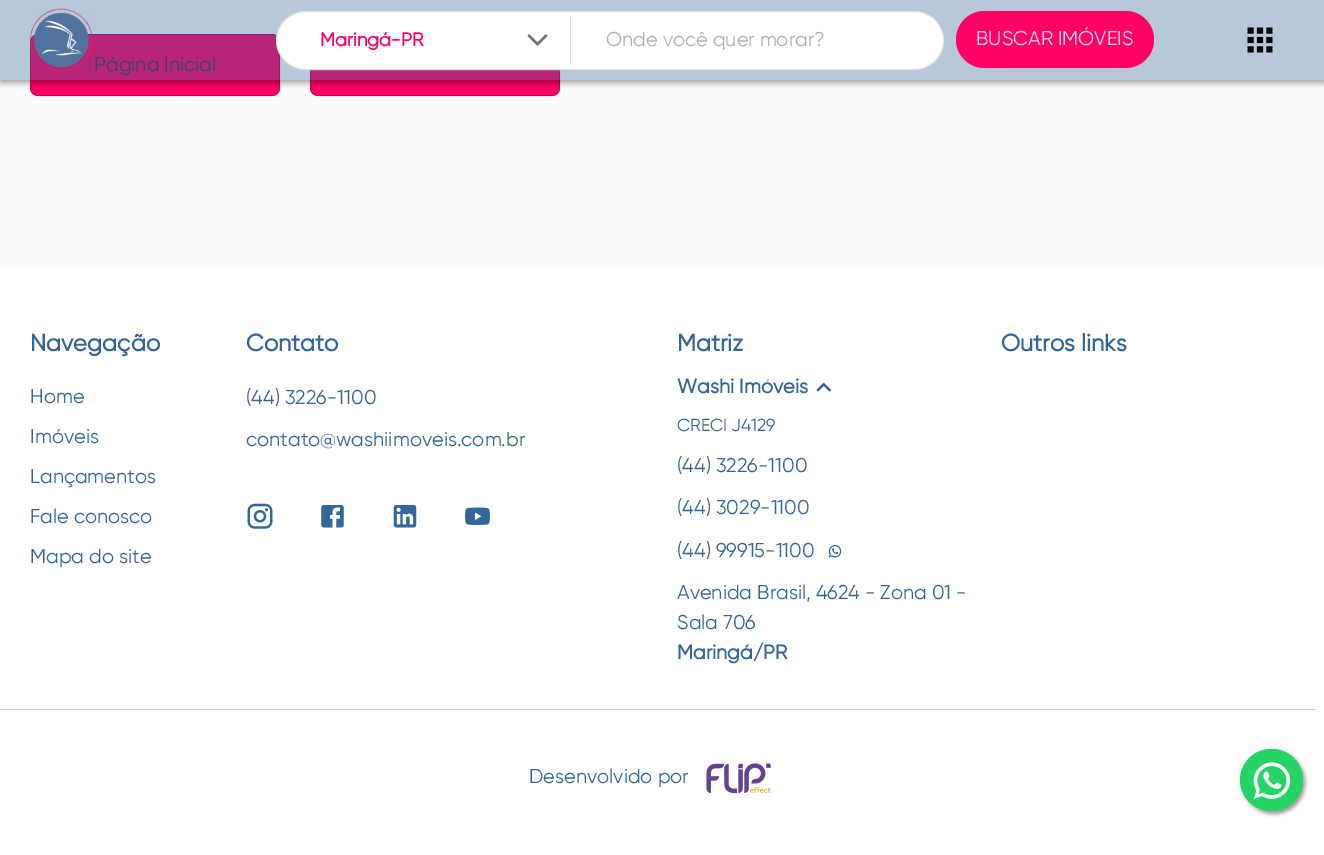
%!PS
<< /PageSize [1324 855] /PageUsesTransparency true >> setpagedevice
/rgb { 3 { 255 div 3 1 roll } repeat setrgbcolor } def
/font { [ exch dup neg 0 0 3 -1 roll 0 0 ] selectfont } def
/alpha { dup .setfillconstantalpha .setstrokeconstantalpha } def
/roundrect { 5 dict begin { /r /h /w /y /x } { exch def } forall
  x r add y moveto x w add y 2 copy h add r arct x w add y h add x 1 index r arct
  x y h add x y r arct x y 2 copy exch w add exch r arct closepath end } def
/shadow { 12 dict begin { /a /b /q /h /w /y /x } { exch def } forall gsave /was 0 def
  9 -2 -9 { dup b mul 4 div /e exch def 1 sub .425 mul 2.718 exch exp 1 add a .99 .min exch div /now exch def
    1 1 now sub 1 was sub div sub alpha /was now def
    w h .min e 2 mul add 0 gt { x e sub y e sub w e 2 mul add h e 2 mul add
      q e add b .6 mul add w h .min 2 div e add .min 0 .max roundrect fill } if } for grestore end } def
/picture { 5 dict begin { /h /w /y /x /name } { exch def } forall
  gsave x y translate w h scale
  w h 8 [w 0 0 h 0 0] name (r) file false 3 colorimage grestore end } def
0 .pushpdf14devicefilter
0 855 translate 1 -1 scale
4 setmiterlimit
252 252 252 rgb
0 0 1324 855 rectfill
255 0 102 rgb
30 34 250 62 8 roundrect fill
0.23 alpha
0 0 0 rgb
30.5 34.5 249 61 7.5 roundrect stroke
1 alpha
255 0 102 rgb
310 34 250 62 8 roundrect fill
0.23 alpha
0 0 0 rgb
310.5 34.5 249 61 7.5 roundrect stroke
gsave
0 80 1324 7 rectclip
1 alpha
0 1 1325 80 0 6 0.12 shadow
grestore
gsave
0 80 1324 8 rectclip
1 alpha
0 5 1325 80 0 3 0.14 shadow
grestore
gsave
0 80 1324 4 rectclip
1 alpha
1 4 1323 77 0 2.5 0.2 shadow
grestore
1 alpha
255 255 255 rgb
0 266 1324 589 rectfill
(img/4.rgb) 247 503 26 26 picture
(img/5.rgb) 321 505 23 23 picture
(img/6.rgb) 393 505 24 23 picture
(img/7.rgb) 465 507 25 18 picture
(img/8.rgb) 816 382 16 10 picture
(img/9.rgb) 828 545 14 13 picture
204 204 204 rgb
0 709 1316 1 rectfill
(img/10.rgb) 706 763 65 30 picture
153 153 153 rgb
1243 751 62 63 31 2 1 shadow
37 211 102 rgb
1240 749 63 62 31 roundrect fill
(img/11.rgb) 1253 762 38 37 picture
/Gilroy-Regular 20 font
55 54 57 rgb
94 71 moveto (Página Inicial) show
0.35 alpha
51 102 153 rgb
0 0 1324 80 rectfill
1 alpha
(img/3.rgb) 1247 27 26 26 picture
255 0 102 rgb
956 11 198 57 28.5 roundrect fill
255 212 229 rgb
976 45 moveto (BUSCAR IMÓVEIS) show
255 255 255 rgb
276.5 11.5 667 58 29 roundrect gsave fill grestore
224 224 224 rgb
stroke
176 176 176 rgb
606 46 moveto (Onde você quer morar?) show
(img/2.rgb) 527 34 21 12 picture
/Gilroy-Bold 18.75 font
255 0 102 rgb
320 46 moveto (Maringá-PR) show
(img/1.rgb) 30 8 63 64 picture
224 224 224 rgb
570 16 1 48 rectfill
/Gilroy-Bold 23.75 font
51 102 153 rgb
30 351 moveto (Navegação) show
/Gilroy-Regular 20 font
[
  [(Home) 30 403]
  [(Imóveis) 30 443]
  [(Lançamentos) 30 483]
  [(Fale conosco) 30 523]
  [(Mapa do site) 30 563]
] { aload pop moveto show } forall
/Gilroy-Bold 23.75 font
246 351 moveto (Contato) show
/Gilroy-Regular 20 font
246 404 moveto (\(44\) 3226-1100) show
246 446 moveto (contato@washiimoveis.com.br) show
/Gilroy-Bold 23.75 font
677 351 moveto (Matriz) show
/Gilroy-Bold 20 font
677 393 moveto (Washi Imóveis) show
/Gilroy-Regular 17.5 font
677 431 moveto (CRECI J4129) show
/Gilroy-Regular 20 font
[
  [(\(44\) 3226-1100) 677 472]
  [(\(44\) 3029-1100) 677 514]
  [(\(44\) 99915-1100) 677 557]
  [(Avenida Brasil, 4624 - Zona 01 -) 677 599]
  [(Sala 706) 677 629]
] { aload pop moveto show } forall
/Gilroy-Bold 20 font
677 659 moveto (Maringá/PR) show
/Gilroy-Bold 23.75 font
1001 351 moveto (Outros links) show
/Gilroy-Regular 20 font
529 783 moveto (Desenvolvido por) show
.poppdf14devicefilter showpage
